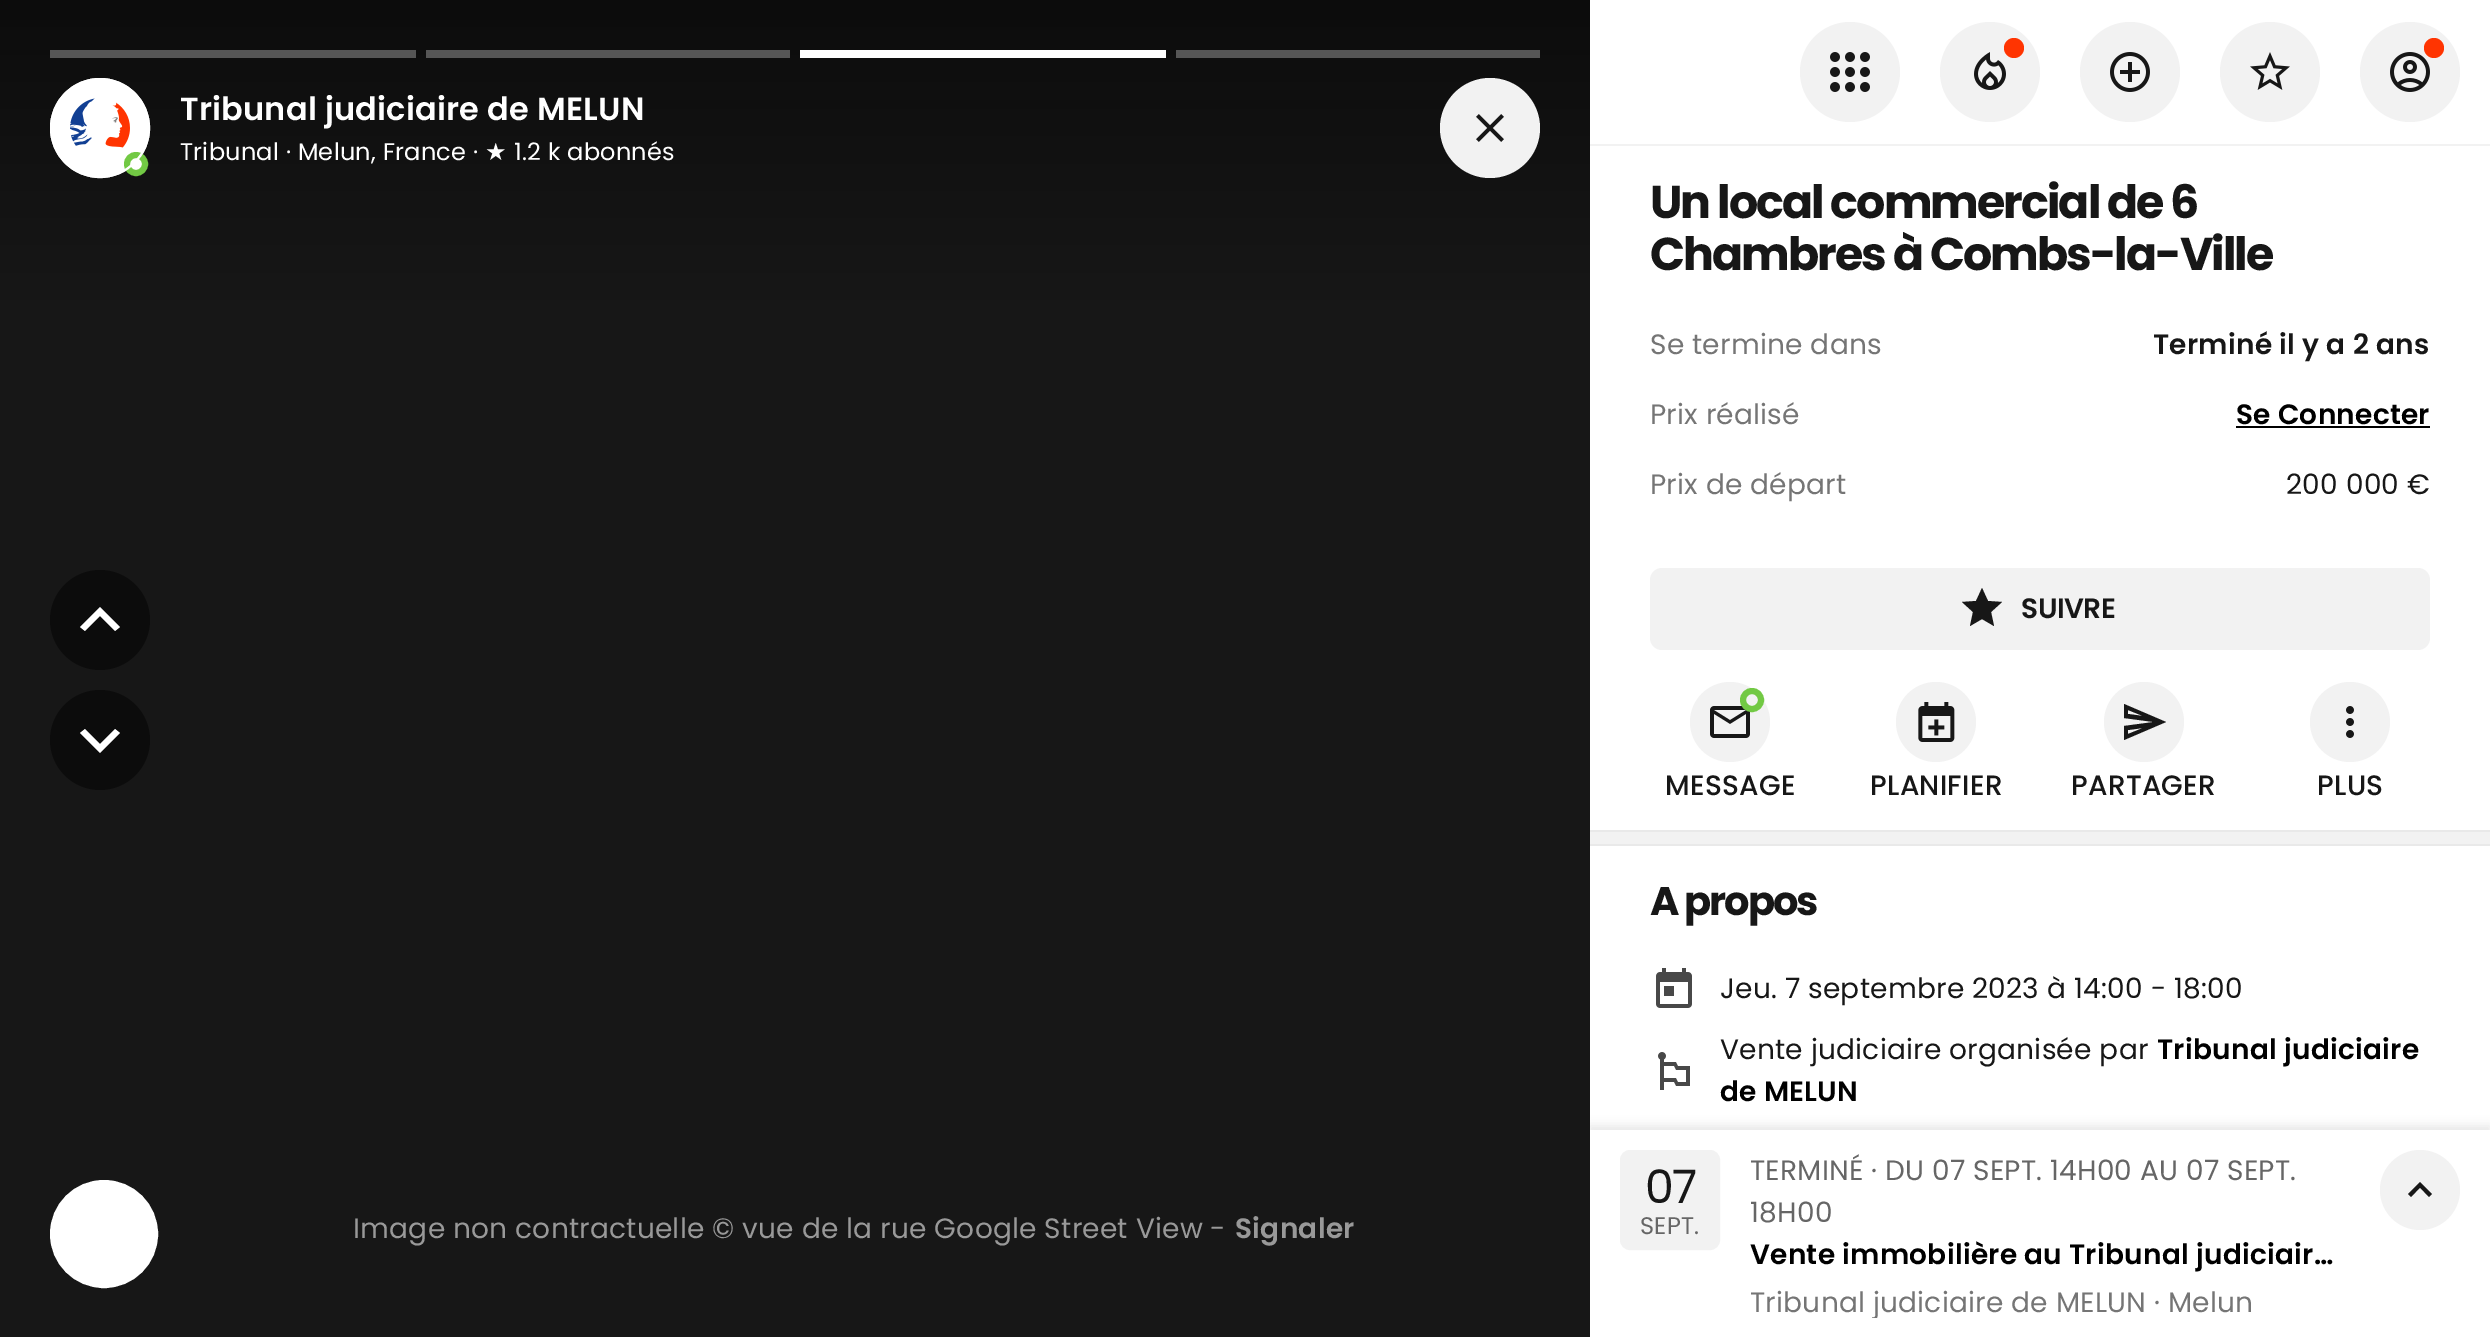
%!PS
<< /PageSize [2490 1337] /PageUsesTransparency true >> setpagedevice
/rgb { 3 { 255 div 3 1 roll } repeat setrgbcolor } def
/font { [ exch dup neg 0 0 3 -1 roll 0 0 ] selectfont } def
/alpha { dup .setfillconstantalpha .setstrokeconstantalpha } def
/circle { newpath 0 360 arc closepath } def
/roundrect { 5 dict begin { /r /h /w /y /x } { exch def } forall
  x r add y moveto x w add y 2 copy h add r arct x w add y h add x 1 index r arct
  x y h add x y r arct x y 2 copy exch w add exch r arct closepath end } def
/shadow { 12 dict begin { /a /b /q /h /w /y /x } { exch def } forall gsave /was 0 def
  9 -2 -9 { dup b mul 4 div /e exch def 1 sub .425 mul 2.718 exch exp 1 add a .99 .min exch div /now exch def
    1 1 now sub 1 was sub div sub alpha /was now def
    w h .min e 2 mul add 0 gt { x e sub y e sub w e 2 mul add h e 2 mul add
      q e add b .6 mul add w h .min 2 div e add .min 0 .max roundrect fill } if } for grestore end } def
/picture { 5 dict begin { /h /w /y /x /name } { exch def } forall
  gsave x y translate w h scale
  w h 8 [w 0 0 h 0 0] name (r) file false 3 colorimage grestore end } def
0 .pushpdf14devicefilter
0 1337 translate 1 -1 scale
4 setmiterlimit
242 242 242 rgb
0 0 2490 1337 rectfill
23 23 23 rgb
0 300 1590 1037 rectfill
gsave 0 0 moveto 1590 0 lineto 1590 300 lineto 0 300 lineto closepath clip newpath
<< /ShadingType 2 /ColorSpace /DeviceRGB /Coords [795 300 795 0] /Extend [true true] /Function << /FunctionType 2 /Domain [0 1] /C0 [0.09 0.09 0.09] /C1 [0.047 0.047 0.047] /N 1 >> >> shfill grestore
[
  [50 50 366 8 86 86 86]
  [426 50 364 8 86 86 86]
  [800 50 366 8 255 255 255]
  [1176 50 364 8 86 86 86]
] { aload pop rgb rectfill } forall
255 255 255 rgb
100 128 50 circle fill
(img/1.rgb) 70 98 60 50 picture
136 164 9 circle gsave fill grestore
114 201 68 rgb
6 setlinewidth
stroke
255 255 255 rgb
2 setlinewidth
100 128 49 circle stroke
242 242 242 rgb
1490 128 50 circle fill
(img/2.rgb) 1476 114 28 28 picture
12 12 12 rgb
100 620 50 circle fill
255 255 255 rgb
85 631 moveto 100 616 lineto 115 631 lineto 120 627 lineto 100 607 lineto 80 627 lineto closepath fill
12 12 12 rgb
100 740 50 circle fill
255 255 255 rgb
85 729 moveto 100 744 lineto 115 729 lineto 120 733 lineto 100 753 lineto 80 733 lineto closepath fill
104 1234 52 circle gsave fill grestore
4 setlinewidth
stroke
1590 0 900 144 rectfill
242 242 242 rgb
1850 72 50 circle fill
(img/3.rgb) 1830 52 40 40 picture
1990 72 50 circle fill
(img/4.rgb) 1974 52 32 38 picture
255 52 1 rgb
2014 48 10 circle fill
242 242 242 rgb
2130 72 50 circle fill
(img/5.rgb) 2110 52 40 40 picture
2270 72 50 circle fill
(img/6.rgb) 2250 52 40 38 picture
2410 72 50 circle fill
(img/7.rgb) 2390 52 40 40 picture
255 52 1 rgb
2434 48 10 circle fill
[
  [1590 146 900 684 255 255 255]
  [1590 830 900 2 233 233 233]
  [2236 426 194 2 0 0 0]
] { aload pop rgb rectfill } forall
242 242 242 rgb
1650 568 780 82 12 roundrect fill
23 23 23 rgb
1982 619 moveto 1994 626 lineto 1991 612 lineto 2002 602 lineto 1988 601 lineto 1982 588 lineto 1976 601 lineto 1962 602 lineto 1973 612 lineto 1970 626 lineto closepath fill
242 242 242 rgb
1730 722 40 circle fill
(img/8.rgb) 1710 706 40 32 picture
114 201 68 rgb
6 setlinewidth
1752 700 9 circle stroke
242 242 242 rgb
1936 722 40 circle fill
(img/9.rgb) 1918 702 37 40 picture
2144 722 40 circle fill
23 23 23 rgb
2128 710 moveto 2143 716 lineto 2128 714 lineto closepath 2143 728 moveto 2128 734 lineto 2128 730 lineto closepath 2124 704 moveto 2124 718 lineto 2154 722 lineto 2124 726 lineto 2124 740 lineto 2166 722 lineto closepath fill
242 242 242 rgb
2350 722 40 circle fill
(img/10.rgb) 2346 706 8 32 picture
255 255 255 rgb
1590 846 900 284 rectfill
233 233 233 rgb
1590 844 900 2 rectfill
(img/11.rgb) 1656 968 36 40 picture
(img/12.rgb) 1658 1052 32 38 picture
0 0 0 rgb
1590 1126 900 208 0 5 0.1 shadow
255 255 255 rgb
1590 1130 900 207 rectfill
242 242 242 rgb
1621 1151 98 98 9 roundrect gsave fill grestore
2 setlinewidth
stroke
2420 1190 40 circle fill
23 23 23 rgb
2420 1182 moveto 2408 1194 lineto 2411 1197 lineto 2420 1187.5 lineto 2429 1197 lineto 2432 1194 lineto closepath fill
/Poppins-SemiBold 32 font
255 255 255 rgb
180 120 moveto 0.25 0 (Tribunal judiciaire de MELUN) ashow
/Poppins-Regular 24 font
180 160 moveto 0.25 0 (Tribunal · Melun, France ·) ashow
/DejaVuSans-Regular 24 font
485 160 moveto 0.25 0 (★) ashow
/Poppins-Regular 24 font
514 160 moveto 0.25 0 (1.2 k abonnés) ashow
/Poppins-Regular 28 font
153 153 153 rgb
353 1238 moveto 0.25 0 (Image non contractuelle © vue de la rue Google Street View -) ashow
/Poppins-SemiBold 28 font
1235 1238 moveto 0.25 0 (Signaler) ashow
/Poppins-Bold 46 font
23 23 23 rgb
1650 218 moveto -2 0 (Un local commercial de 6) ashow
1650 270 moveto -2 0 (Chambres à Combs-la-Ville) ashow
/Poppins-Regular 28 font
117 117 117 rgb
1650 354 moveto 0.25 0 (Se termine dans) ashow
/Poppins-SemiBold 28 font
23 23 23 rgb
2153 354 moveto 0.25 0 (Terminé il y a 2 ans) ashow
/Poppins-Regular 28 font
117 117 117 rgb
1650 424 moveto 0.25 0 (Prix réalisé) ashow
/Poppins-SemiBold 28 font
0 0 0 rgb
2236 424 moveto 0.25 0 (Se Connecter) ashow
/Poppins-Regular 28 font
117 117 117 rgb
1650 494 moveto 0.25 0 (Prix de départ) ashow
23 23 23 rgb
2286 494 moveto 0.25 0 (200 000 €) ashow
/Poppins-SemiBold 28 font
2021 618 moveto -0.5 0 (SUIVRE) ashow
/Poppins-Medium 28 font
1665 795 moveto 0.25 0 (MESSAGE) ashow
1870 795 moveto 0.25 0 (PLANIFIER) ashow
2071 795 moveto 0.25 0 (PARTAGER) ashow
2317 795 moveto 0.25 0 (PLUS) ashow
/Poppins-Bold 40 font
1650 915 moveto -2 0 (A propos) ashow
/Poppins-Regular 28 font
1720 998 moveto 0.25 0 (Jeu. 7 septembre 2023 à 14:00 - 18:00) ashow
1720 1059 moveto 0.25 0 (Vente judiciaire organisée par) ashow
/Poppins-SemiBold 28 font
0 0 0 rgb
2157 1059 moveto 0.25 0 (Tribunal judiciaire) ashow
1720 1101 moveto 0.25 0 (de MELUN) ashow
/Poppins-Regular 46 font
23 23 23 rgb
1645 1203 moveto -2 0 (07) ashow
/Poppins-Regular 24 font
102 102 102 rgb
1640 1234 moveto 0.25 0 (SEPT.) ashow
/Poppins-Regular 28 font
1750 1180 moveto 0.25 0 (TERMINÉ · DU 07 SEPT. 14H00 AU 07 SEPT.) ashow
1750 1222 moveto 0.25 0 (18H00) ashow
/Poppins-SemiBold 28 font
0 0 0 rgb
1750 1264 moveto 0.25 0 (Vente immobilière au Tribunal judiciair…) ashow
gsave
1750 1286 504 32 rectclip
/Poppins-Regular 28 font
117 117 117 rgb
1750 1312 moveto 0.25 0 (Tribunal judiciaire de MELUN) ashow
grestore
/Poppins-Regular 28 font
117 117 117 rgb
2154 1312 moveto 0.25 0 (· Melun) ashow
.poppdf14devicefilter showpage
